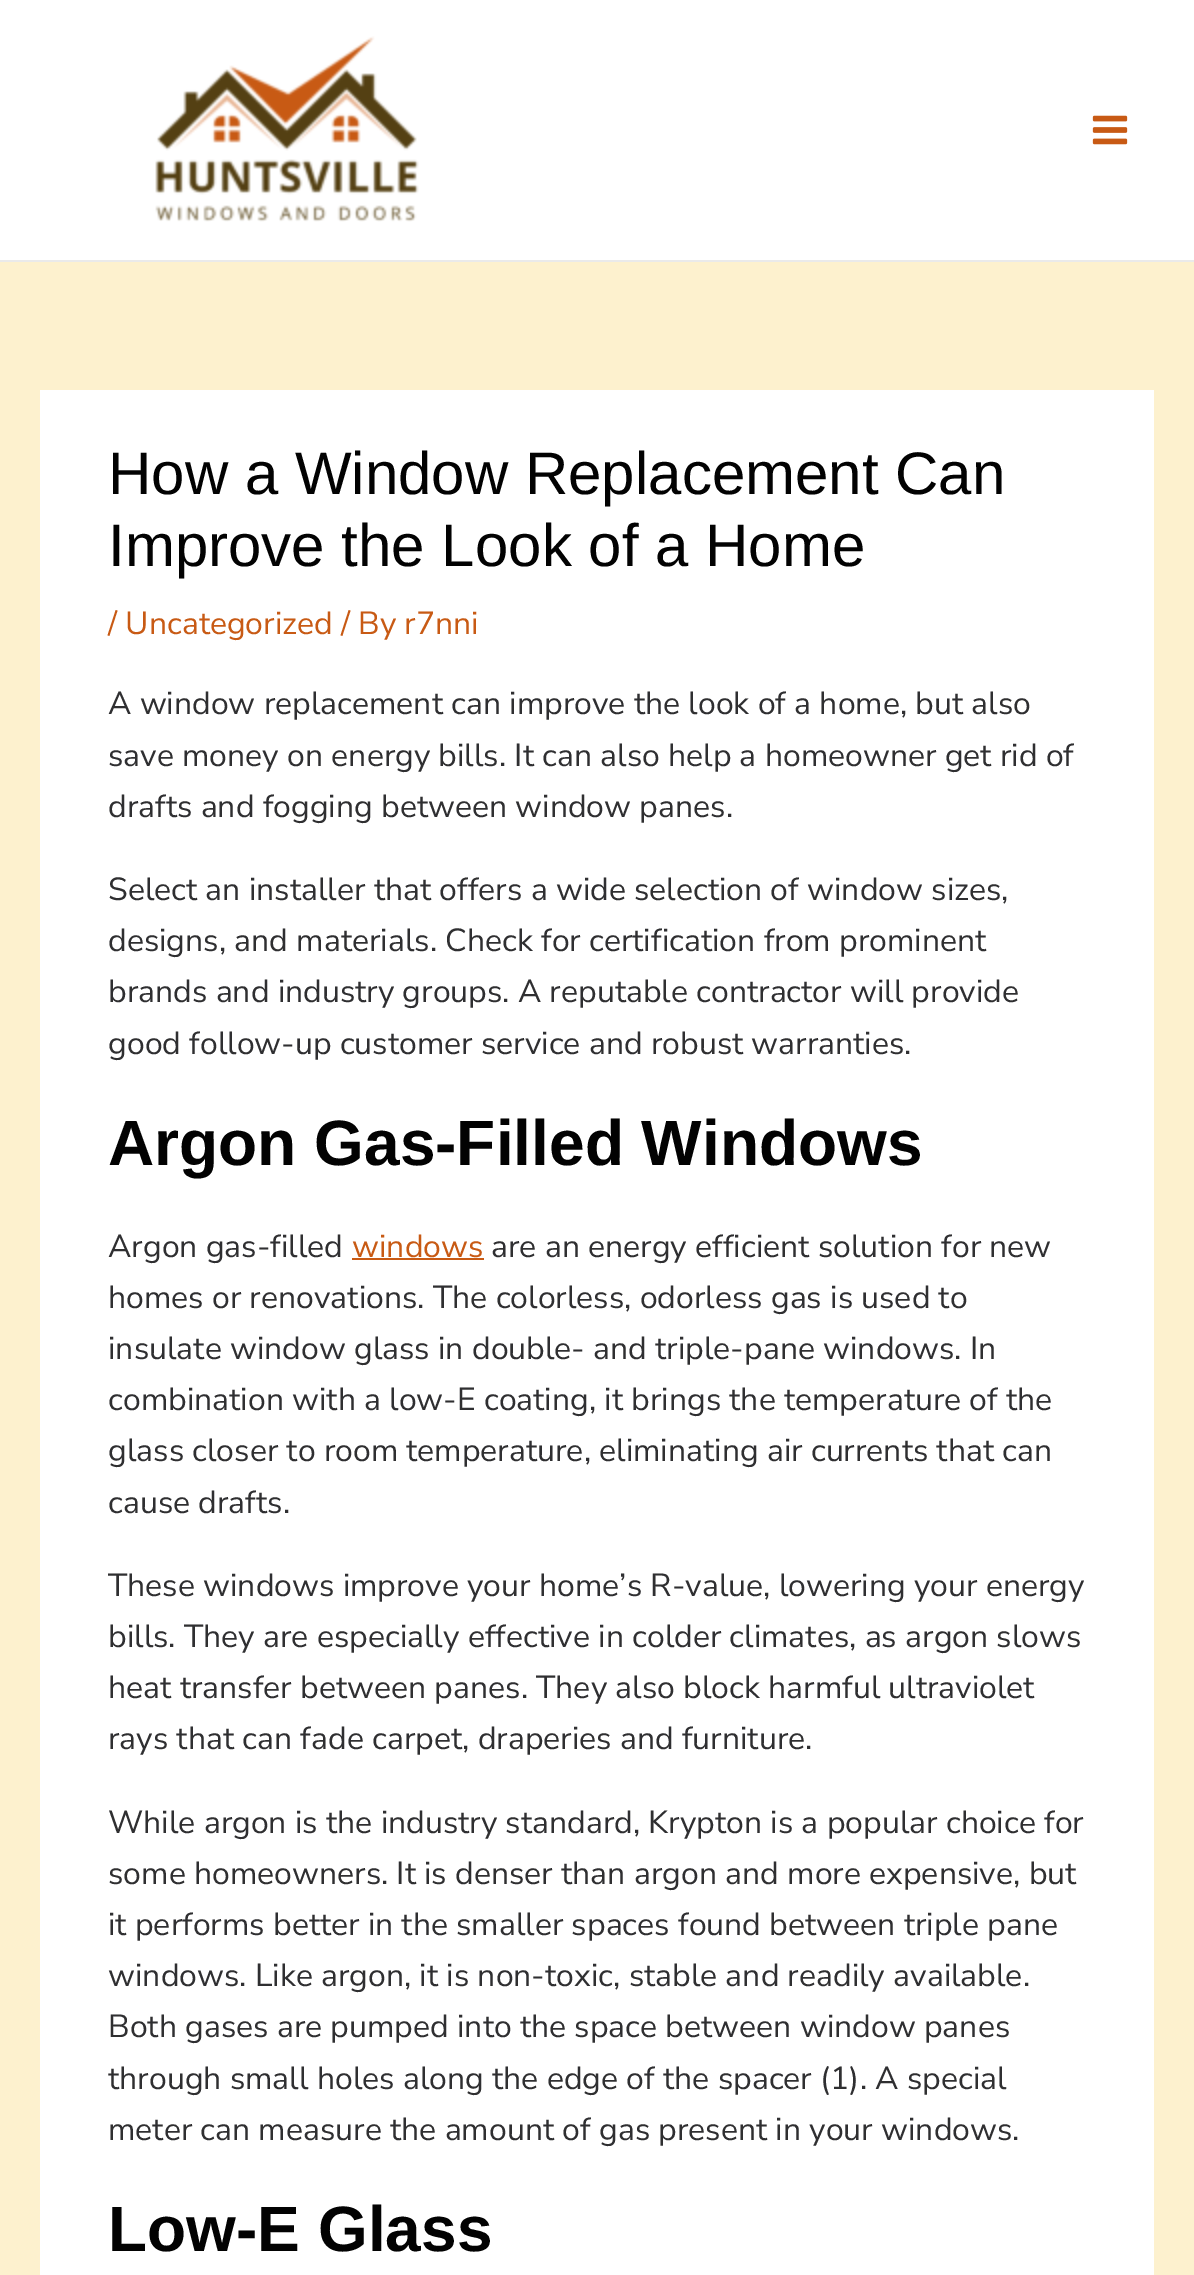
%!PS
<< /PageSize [1194 2275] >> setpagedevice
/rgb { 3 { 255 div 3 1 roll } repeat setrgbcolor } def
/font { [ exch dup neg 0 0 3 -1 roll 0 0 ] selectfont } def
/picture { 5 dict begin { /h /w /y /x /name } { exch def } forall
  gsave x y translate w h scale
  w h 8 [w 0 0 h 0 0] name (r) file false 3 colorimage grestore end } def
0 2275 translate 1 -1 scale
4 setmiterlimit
253 241 206 rgb
0 0 1194 2275 rectfill
255 255 255 rgb
0 0 1194 260 rectfill
234 234 234 rgb
0 260 1194 2 rectfill
(img/1.rgb) 155 36 264 186 picture
(img/2.rgb) 1092 115 36 30 picture
255 255 255 rgb
40 390 1114 1885 rectfill
200 90 20 rgb
352 1258 132 2 rectfill
/LiberationSans-Regular 60 font
2 2 2 rgb
108 494 moveto (How a Window Replacement Can) show
108 566 moveto (Improve the Look of a Home) show
/NunitoSans-Regular 32 font
200 90 20 rgb
108 634 moveto (/ Uncategorized / By r7nni) show
47 47 49 rgb
[
  [(A window replacement can improve the look of a home, but also) 108 714]
  [(save money on energy bills. It can also help a homeowner get rid of) 108 766]
  [(drafts and fogging between window panes.) 108 817]
  [(Select an installer that offers a wide selection of window sizes,) 108 900]
  [(designs, and materials. Check for certification from prominent) 108 951]
  [(brands and industry groups. A reputable contractor will provide) 108 1002]
  [(good follow-up customer service and robust warranties.) 108 1054]
] { aload pop moveto show } forall
/LiberationSans-Bold 64 font
2 2 2 rgb
108 1165 moveto (Argon Gas-Filled Windows) show
/NunitoSans-Regular 32 font
47 47 49 rgb
108 1257 moveto (Argon gas-filled) show
200 90 20 rgb
352 1257 moveto (windows) show
47 47 49 rgb
[
  [(are an energy efficient solution for new) 491 1257]
  [(homes or renovations. The colorless, odorless gas is used to) 108 1308]
  [(insulate window glass in double- and triple-pane windows. In) 108 1359]
  [(combination with a low-E coating, it brings the temperature of the) 108 1410]
  [(glass closer to room temperature, eliminating air currents that can) 108 1461]
  [(cause drafts.) 108 1513]
  [(These windows improve your home’s R-value, lowering your energy) 108 1596]
  [(bills. They are especially effective in colder climates, as argon slows) 108 1647]
  [(heat transfer between panes. They also block harmful ultraviolet) 108 1698]
  [(rays that can fade carpet, draperies and furniture.) 108 1749]
  [(While argon is the industry standard, Krypton is a popular choice for) 108 1833]
  [(some homeowners. It is denser than argon and more expensive, but) 108 1884]
  [(it performs better in the smaller spaces found between triple pane) 108 1935]
  [(windows. Like argon, it is non-toxic, stable and readily available.) 108 1986]
  [(Both gases are pumped into the space between window panes) 108 2037]
  [(through small holes along the edge of the spacer \(1\). A special) 108 2089]
  [(meter can measure the amount of gas present in your windows.) 108 2140]
] { aload pop moveto show } forall
/LiberationSans-Bold 64 font
2 2 2 rgb
108 2251 moveto (Low-E Glass) show
showpage
